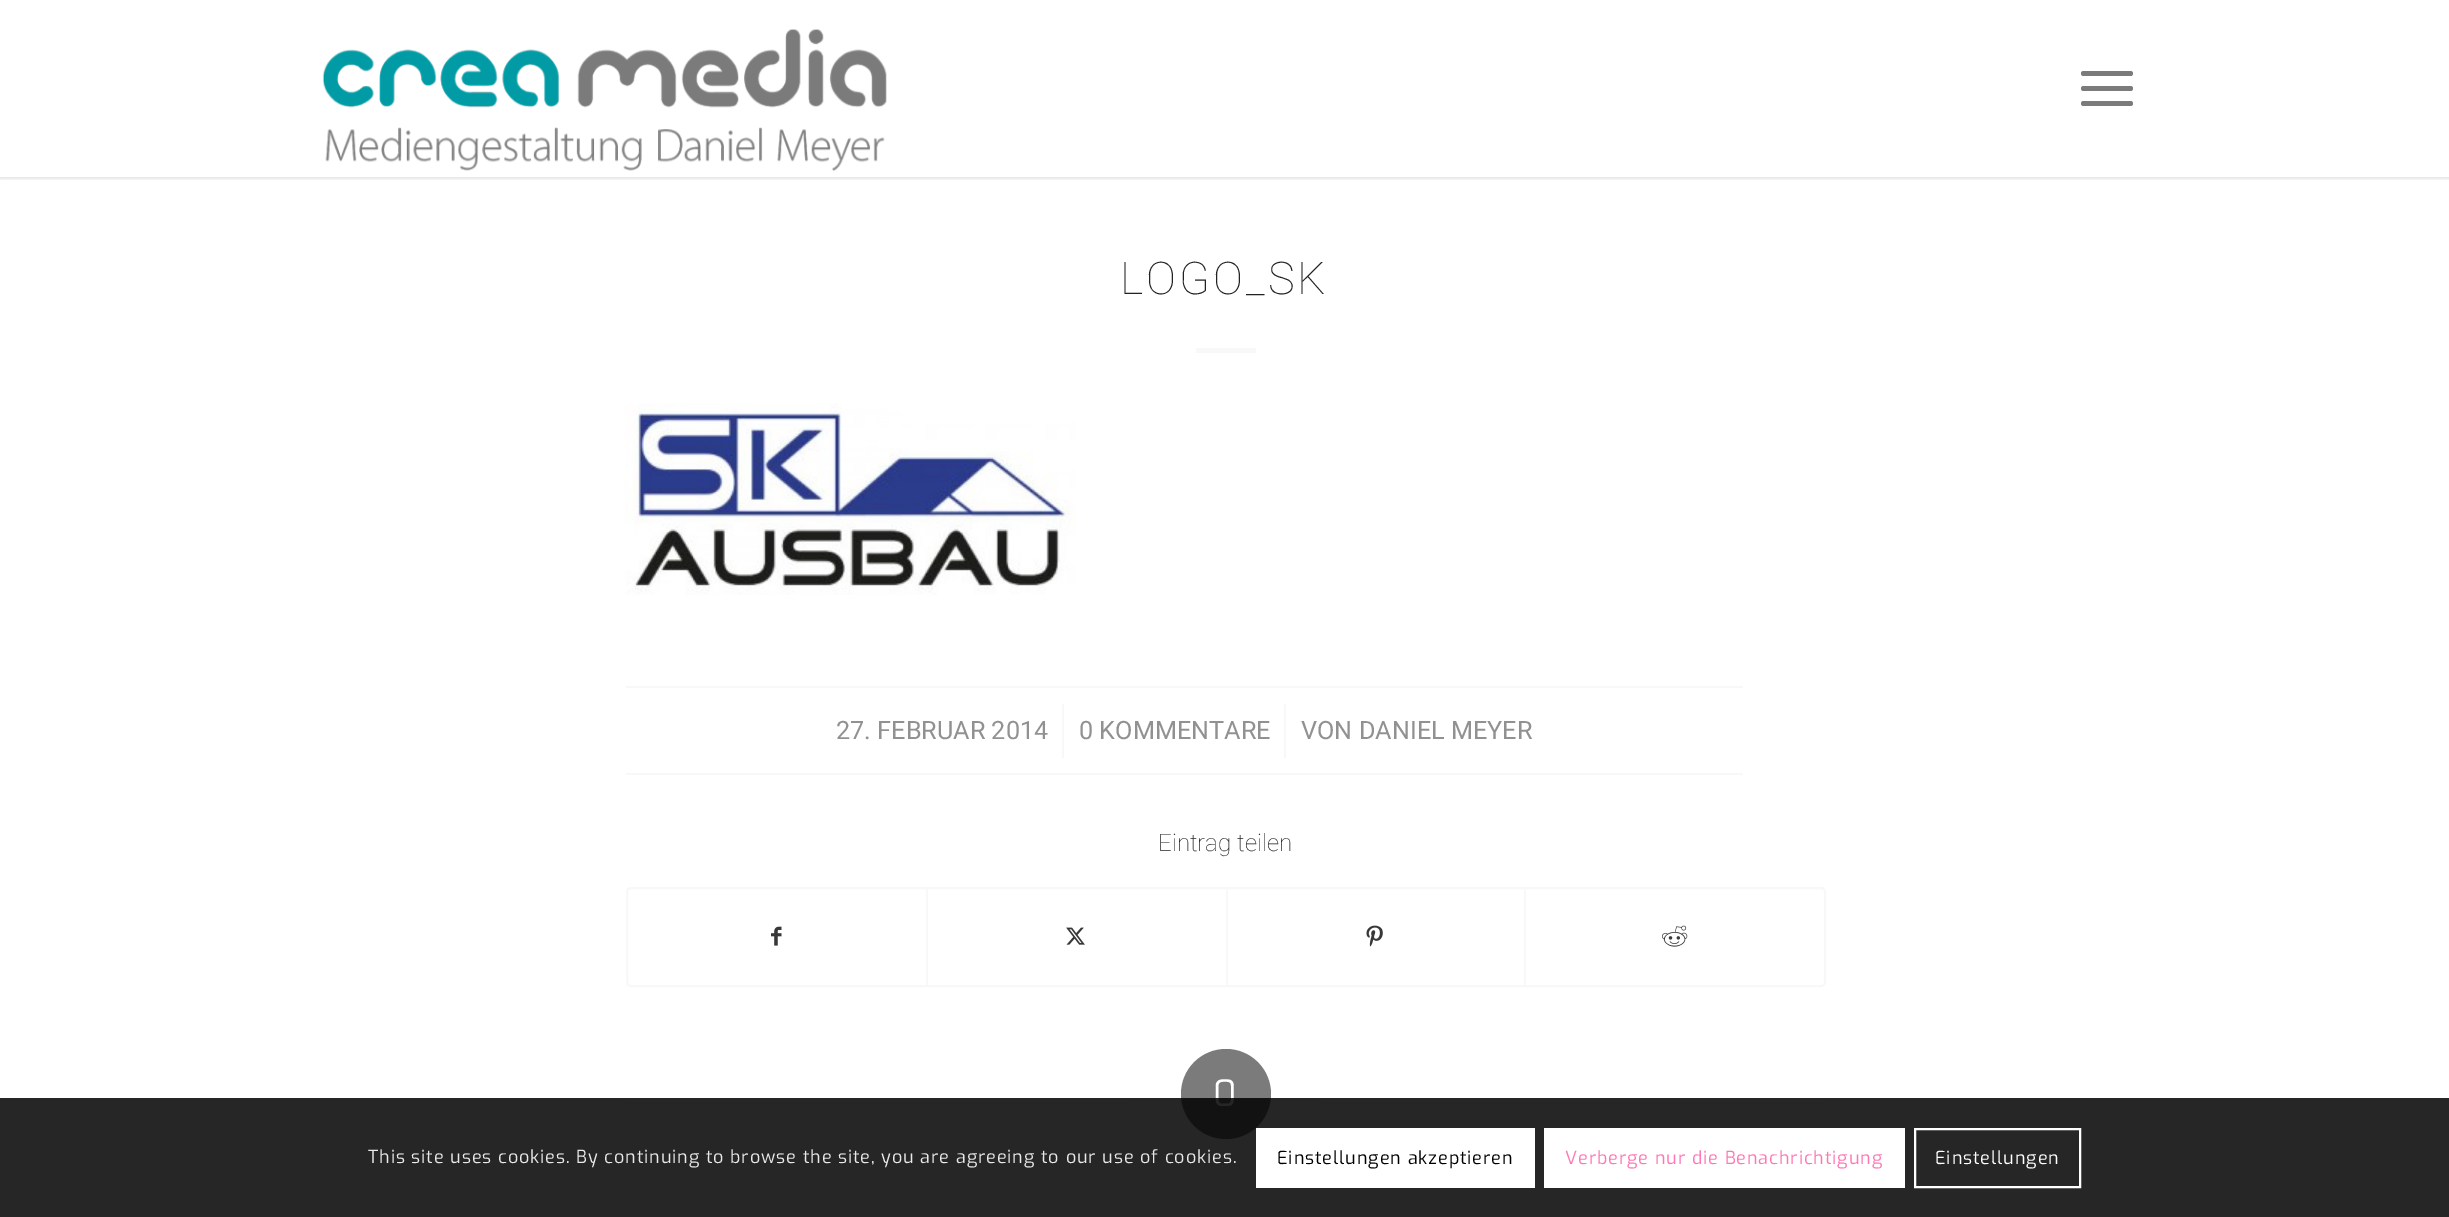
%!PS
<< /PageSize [2449 1217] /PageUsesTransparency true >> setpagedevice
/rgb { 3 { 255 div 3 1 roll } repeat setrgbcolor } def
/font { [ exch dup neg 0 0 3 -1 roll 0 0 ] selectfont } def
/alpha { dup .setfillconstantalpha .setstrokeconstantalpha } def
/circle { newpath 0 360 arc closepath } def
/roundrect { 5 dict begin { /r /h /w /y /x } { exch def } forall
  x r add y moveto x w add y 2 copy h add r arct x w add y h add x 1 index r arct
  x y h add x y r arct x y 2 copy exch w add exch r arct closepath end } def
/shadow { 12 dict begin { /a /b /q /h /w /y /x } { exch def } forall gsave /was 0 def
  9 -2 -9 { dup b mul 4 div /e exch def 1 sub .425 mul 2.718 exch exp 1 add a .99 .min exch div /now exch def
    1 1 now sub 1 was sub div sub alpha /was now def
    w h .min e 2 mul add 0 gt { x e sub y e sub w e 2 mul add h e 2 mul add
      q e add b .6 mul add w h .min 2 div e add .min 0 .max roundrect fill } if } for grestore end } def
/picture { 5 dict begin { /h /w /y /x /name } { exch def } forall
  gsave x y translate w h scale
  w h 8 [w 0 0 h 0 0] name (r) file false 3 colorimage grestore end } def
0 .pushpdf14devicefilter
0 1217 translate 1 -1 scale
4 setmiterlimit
255 255 255 rgb
0 0 2449 1217 rectfill
gsave
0 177 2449 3 rectclip
0 0 0 rgb
-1 -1 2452 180 0 1.5 0.1 shadow
grestore
(img/1.rgb) 322 29 565 142 picture
124 123 123 rgb
2081 86 52 5 2.5 roundrect fill
2081 71 52 5 2.5 roundrect fill
2081 101 52 5 2.5 roundrect fill
248 248 248 rgb
1196 348 60 5 rectfill
(img/2.rgb) 625 403 451 192 picture
[
  [626 686 1117 2 248 248 248]
  [626 773 1117 2 248 248 248]
  [1062 704 2 54 248 248 248]
  [1284 704 2 54 248 248 248]
] { aload pop rgb rectfill } forall
2 setlinewidth
627 888 1198 98 4 roundrect stroke
(img/3.rgb) 771 926 11 20 picture
926 888 2 98 rectfill
(img/4.rgb) 1066 927 19 18 picture
1226 888 2 98 rectfill
(img/5.rgb) 1366 925 17 22 picture
1524 888 2 98 rectfill
(img/6.rgb) 1662 925 26 22 picture
626 1103 504 2 rectfill
124 123 123 rgb
1226 1094 45 circle fill
248 248 248 rgb
1322 1103 504 2 rectfill
/Roboto-Thin 45 font
34 34 34 rgb
1120 294 moveto 3 0 (LOGO_SK) ashow
/Roboto-Regular 25.25 font
145 145 145 rgb
[
  [(27. FEBRUAR 2014) 836 739]
  [(0 KOMMENTARE) 1079 739]
  [(VON DANIEL MEYER) 1301 739]
] { aload pop moveto show } forall
/Roboto-Thin 24 font
34 34 34 rgb
1158 851 moveto (Eintrag teilen) show
/Exo-Regular 36 font
255 255 255 rgb
1213 1106 moveto (0) show
0.85 alpha
0 0 0 rgb
0 1098 2449 119 rectfill
/Exo-Regular 18 font
1 alpha
233 233 233 rgb
368 1163 moveto 0.9 0 (This site uses cookies. By continuing to browse the site, you are agreeing to our use of cookies.) ashow
255 255 255 rgb
1256 1128 279 60 rectfill
0 0 0 rgb
1277 1164 moveto 0.9 0 (Einstellungen akzeptieren) ashow
255 255 255 rgb
1544 1128 361 60 rectfill
255 117 181 rgb
1565 1164 moveto 0.9 0 (Verberge nur die Benachrichtigung) ashow
255 255 255 rgb
1915 1129 165 58 rectstroke
1935 1164 moveto 0.9 0 (Einstellungen) ashow
.poppdf14devicefilter showpage
